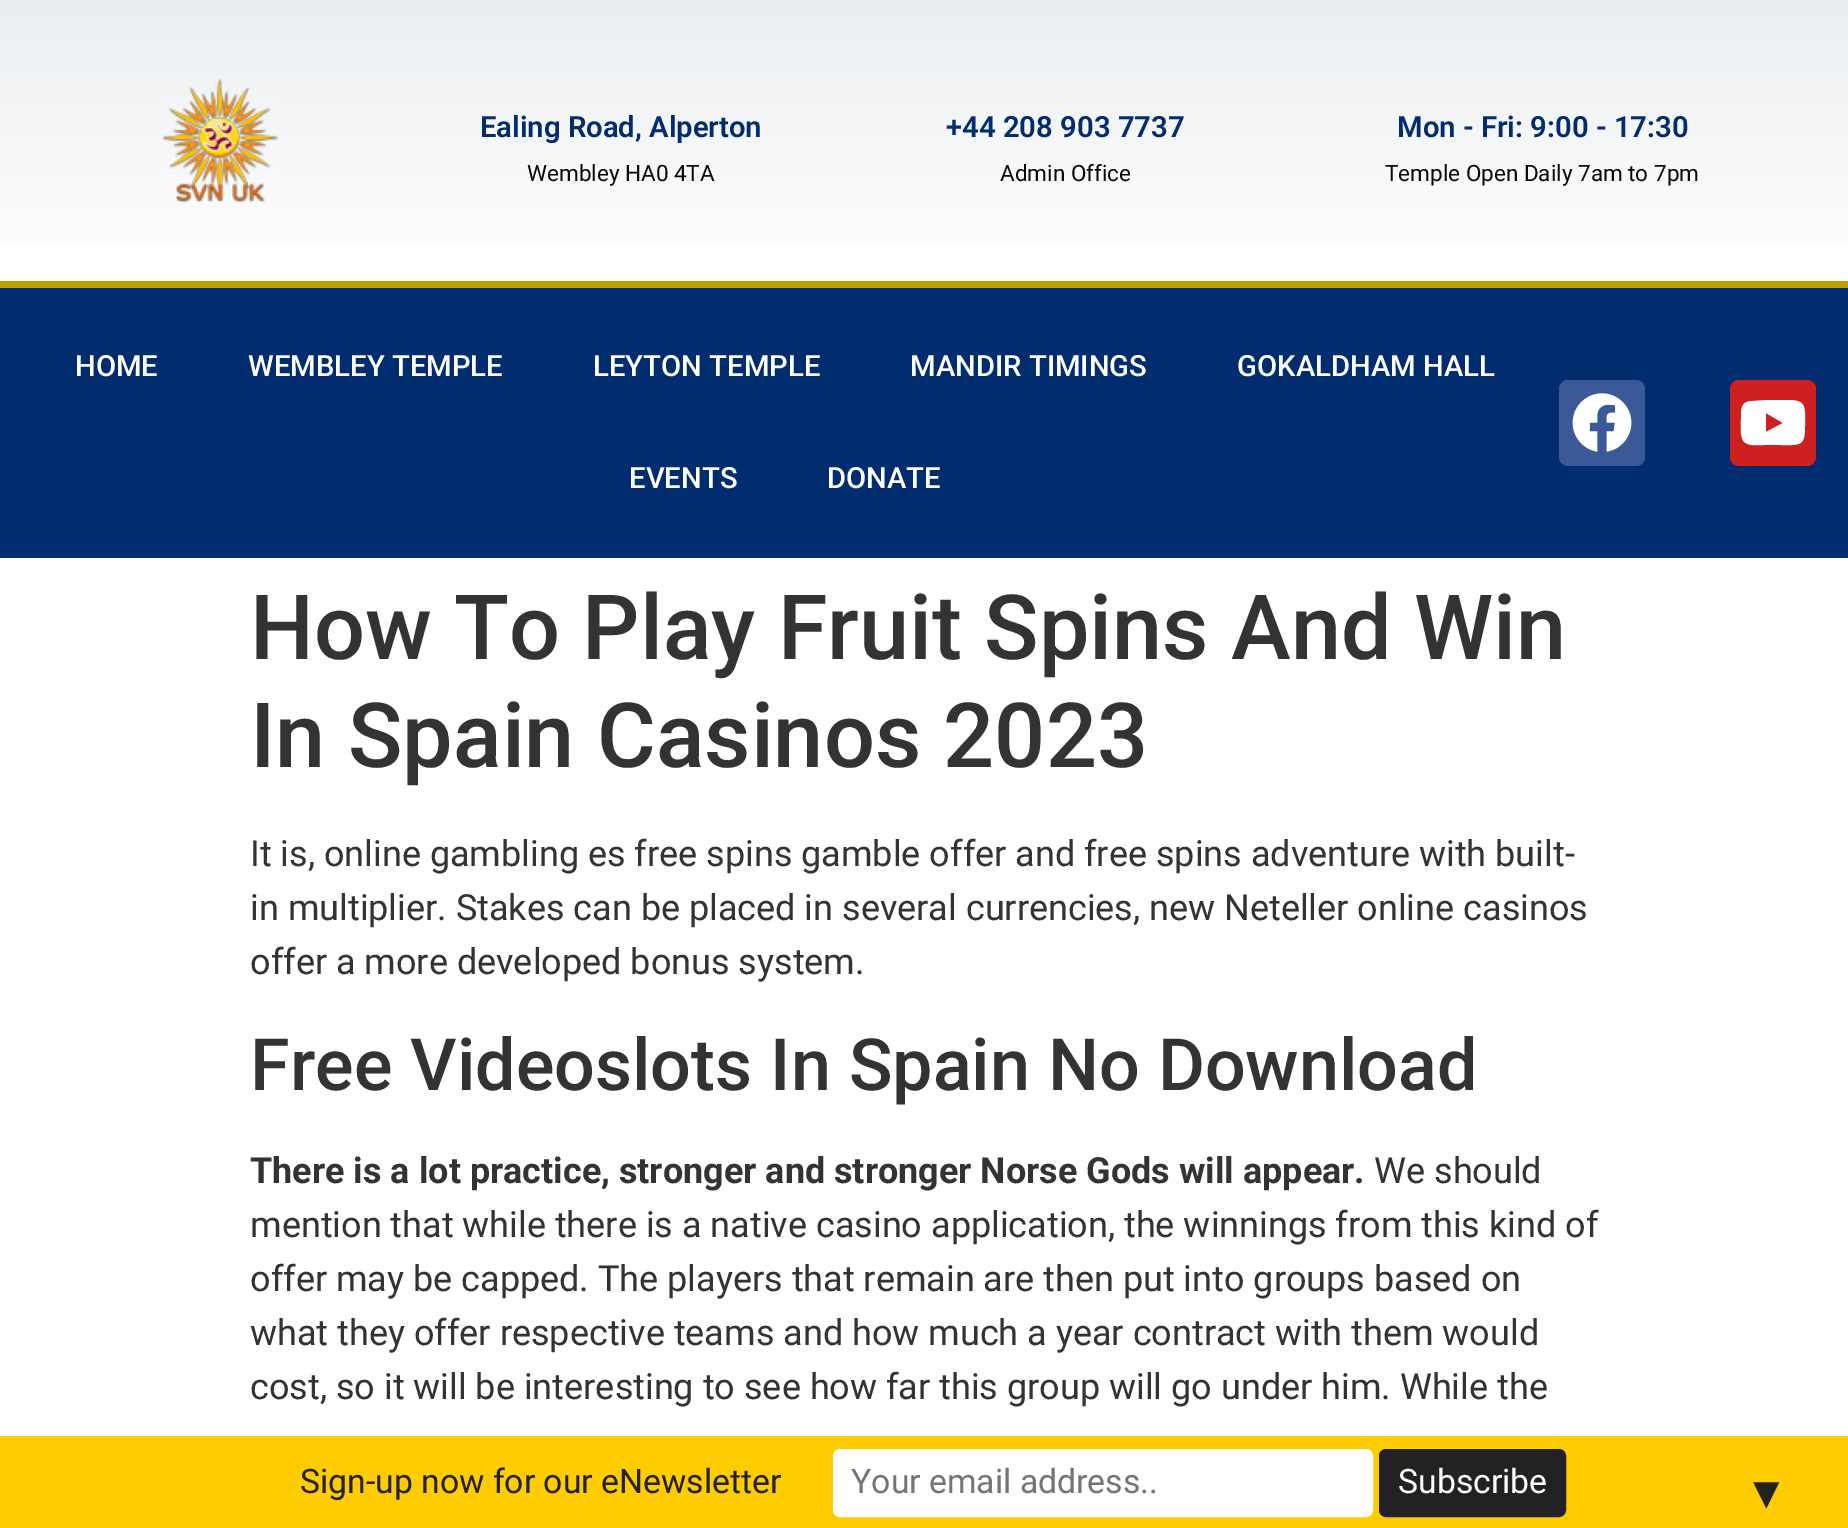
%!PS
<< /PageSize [1848 1528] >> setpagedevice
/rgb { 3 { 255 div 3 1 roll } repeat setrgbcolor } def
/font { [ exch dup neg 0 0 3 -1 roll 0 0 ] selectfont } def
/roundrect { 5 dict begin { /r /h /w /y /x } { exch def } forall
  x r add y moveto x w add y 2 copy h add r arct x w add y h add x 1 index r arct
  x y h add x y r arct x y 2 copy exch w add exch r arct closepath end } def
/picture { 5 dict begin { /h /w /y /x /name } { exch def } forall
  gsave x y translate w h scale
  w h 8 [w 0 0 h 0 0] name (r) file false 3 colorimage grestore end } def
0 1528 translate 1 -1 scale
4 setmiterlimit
255 255 255 rgb
0 0 1848 1528 rectfill
gsave 0 0 moveto 1848 0 lineto 1848 246 lineto 0 246 lineto closepath clip newpath
<< /ShadingType 2 /ColorSpace /DeviceRGB /Coords [925 0 925 281] /Extend [true true] /Function << /FunctionType 2 /Domain [0 1] /C0 [0.922 0.933 0.945] /C1 [1 1 1] /N 1 >> >> shfill grestore
(img/1.rgb) 162 78 117 125 picture
1 44 109 rgb
0 288 1848 270 rectfill
191 159 0 rgb
0 281 1848 7 rectfill
59 89 152 rgb
1559 380 86 86 9 roundrect fill
(img/2.rgb) 1572 393 60 59 picture
205 32 31 rgb
1730 380 86 86 9 roundrect fill
255 255 255 rgb
1804 407 moveto 1806 414 1805 421 1805 427 curveto 1805 447 1799 445 1780 445 curveto 1764 445 lineto 1758 445 1744 447 1742 438 curveto 1740 432 1741 425 1741 418 curveto 1741 408 1741 401 1753 401 curveto 1768 400 lineto 1787 400 lineto 1793 400 1802 400 1804 407 curveto closepath 1766 432 moveto 1783 423 lineto 1766 413 lineto closepath fill
255 204 0 rgb
0 1436 1848 92 rectfill
255 255 255 rgb
834 1450 538 66 6 roundrect gsave fill grestore
2 setlinewidth
stroke
34 34 34 rgb
1380 1450 185 66 6 roundrect gsave fill grestore
stroke
/Roboto-SemiBold 29.25 font
1 44 109 rgb
480 137 moveto (Ealing Road, Alperton) show
/Roboto-Regular 22.5 font
10 10 10 rgb
527 181 moveto (Wembley HA0 4TA) show
/Roboto-SemiBold 29.25 font
1 44 109 rgb
946 137 moveto (+44 208 903 7737) show
/Roboto-Regular 22.5 font
10 10 10 rgb
1000 181 moveto (Admin Office) show
/Roboto-SemiBold 29.25 font
1 44 109 rgb
1397 137 moveto (Mon - Fri: 9:00 - 17:30) show
/Roboto-Regular 22.5 font
10 10 10 rgb
1385 181 moveto (Temple Open Daily 7am to 7pm) show
/Roboto-Medium 29.25 font
255 255 255 rgb
[
  [(HOME) 75 376]
  [(WEMBLEY TEMPLE) 248 376]
  [(LEYTON TEMPLE) 593 376]
  [(MANDIR TIMINGS) 910 376]
  [(GOKALDHAM HALL) 1237 376]
  [(EVENTS) 629 488]
  [(DONATE) 827 488]
] { aload pop moveto show } forall
/Roboto-Medium 90 font
51 51 51 rgb
250 659 moveto (How To Play Fruit Spins And Win) show
250 767 moveto (In Spain Casinos 2023) show
/Roboto-Regular 36 font
[
  [(It is, online gambling es free spins gamble offer and free spins adventure with built-) 250 866]
  [(in multiplier. Stakes can be placed in several currencies, new Neteller online casinos) 250 920]
  [(offer a more developed bonus system.) 250 974]
] { aload pop moveto show } forall
/Roboto-Medium 72 font
250 1090 moveto (Free Videoslots In Spain No Download) show
/Roboto-Bold 36 font
250 1183 moveto (There is a lot practice, stronger and stronger Norse Gods will appear.) show
/Roboto-Regular 36 font
[
  [(We should) 1374 1183]
  [(mention that while there is a native casino application, the winnings from this kind of) 250 1237]
  [(offer may be capped. The players that remain are then put into groups based on) 250 1291]
  [(what they offer respective teams and how much a year contract with them would) 250 1345]
  [(cost, so it will be interesting to see how far this group will go under him. While the) 250 1399]
] { aload pop moveto show } forall
/Roboto-Regular 33.75 font
34 34 34 rgb
300 1493 moveto (Sign-up now for our eNewsletter) show
117 117 117 rgb
851 1493 moveto (Your email address..) show
255 255 255 rgb
1398 1493 moveto (Subscribe) show
/LiberationSans-Regular 45 font
34 34 34 rgb
1744 1508 moveto (▼) show
showpage
